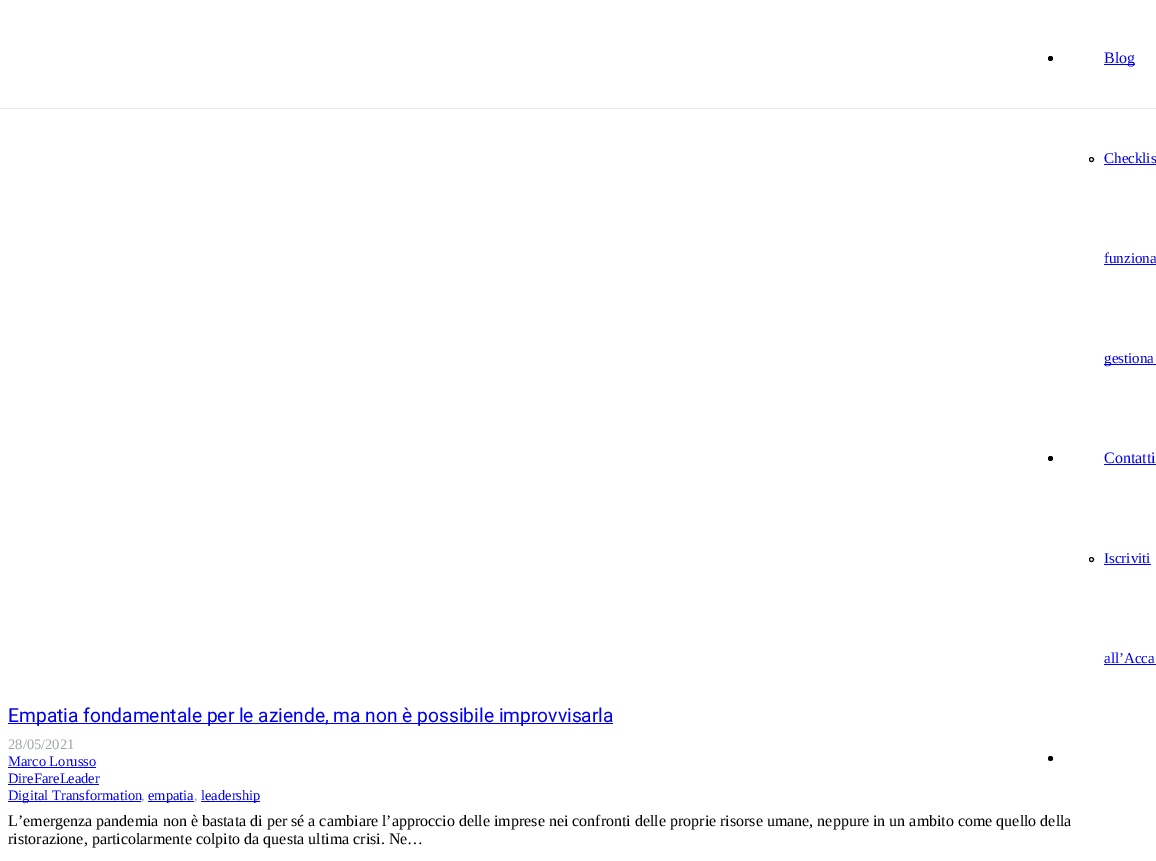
%!PS
<< /PageSize [1156 861] >> setpagedevice
/rgb { 3 { 255 div 3 1 roll } repeat setrgbcolor } def
/font { [ exch dup neg 0 0 3 -1 roll 0 0 ] selectfont } def
/circle { newpath 0 360 arc closepath } def
0 861 translate 1 -1 scale
4 setmiterlimit
255 255 255 rgb
0 0 1156 861 rectfill
235 235 235 rgb
0 108 1156 1 rectfill
0 0 0 rgb
1050.5 58.5 2.5 circle fill
0 0 238 rgb
1104 64 31 1 rectfill
0 0 0 rgb
1091.5 159.5 2 circle stroke
[
  [1104 164 52 1 0 0 238]
  [1104 264 52 1 0 0 238]
  [1104 364 52 1 0 0 238]
] { aload pop rgb rectfill } forall
0 0 0 rgb
1050.5 458.5 2.5 circle fill
0 0 238 rgb
1104 464 52 1 rectfill
0 0 0 rgb
1091.5 559.5 2 circle stroke
0 0 238 rgb
1104 564 47 1 rectfill
1104 664 52 1 rectfill
0 0 0 rgb
1050.5 758.5 2.5 circle fill
[
  [8 723 605 1 0 0 238]
  [8 767 88 1 0 0 238]
  [8 784 91 1 0 0 238]
  [8 801 133 1 0 0 238]
  [148 801 46 1 0 0 238]
  [201 801 59 1 0 0 238]
] { aload pop rgb rectfill } forall
/LiberationSerif-Regular 16 font
1104 63 moveto (Blog) show
/LiberationSerif-Regular 15 font
[
  [(Checklis) 1104 163]
  [(funziona) 1104 263]
  [(gestiona) 1104 363]
] { aload pop moveto show } forall
/LiberationSerif-Regular 16 font
1104 463 moveto (Contatti) show
/LiberationSerif-Regular 15 font
1104 563 moveto (Iscriviti) show
1104 663 moveto (all’Acca) show
/Roboto-Regular 19.2 font
8 722 moveto (Empatia fondamentale per le aziende, ma non è possibile improvvisarla) show
/LiberationSerif-Regular 14.5 font
157 166 168 rgb
8 749 moveto (28/05/2021) show
0 0 238 rgb
[
  [(Marco Lorusso) 8 766]
  [(DireFareLeader) 8 783]
  [(Digital Transformation) 8 800]
] { aload pop moveto show } forall
157 166 168 rgb
141 800 moveto (,) show
0 0 238 rgb
148 800 moveto (empatia) show
157 166 168 rgb
194 800 moveto (,) show
0 0 238 rgb
201 800 moveto (leadership) show
/LiberationSerif-Regular 16 font
0 0 0 rgb
8 826 moveto (L’emergenza pandemia non è bastata di per sé a cambiare l’approccio delle imprese nei confronti delle proprie risorse umane, neppure in un ambito come quello della) show
8 844 moveto (ristorazione, particolarmente colpito da questa ultima crisi. Ne…) show
showpage
